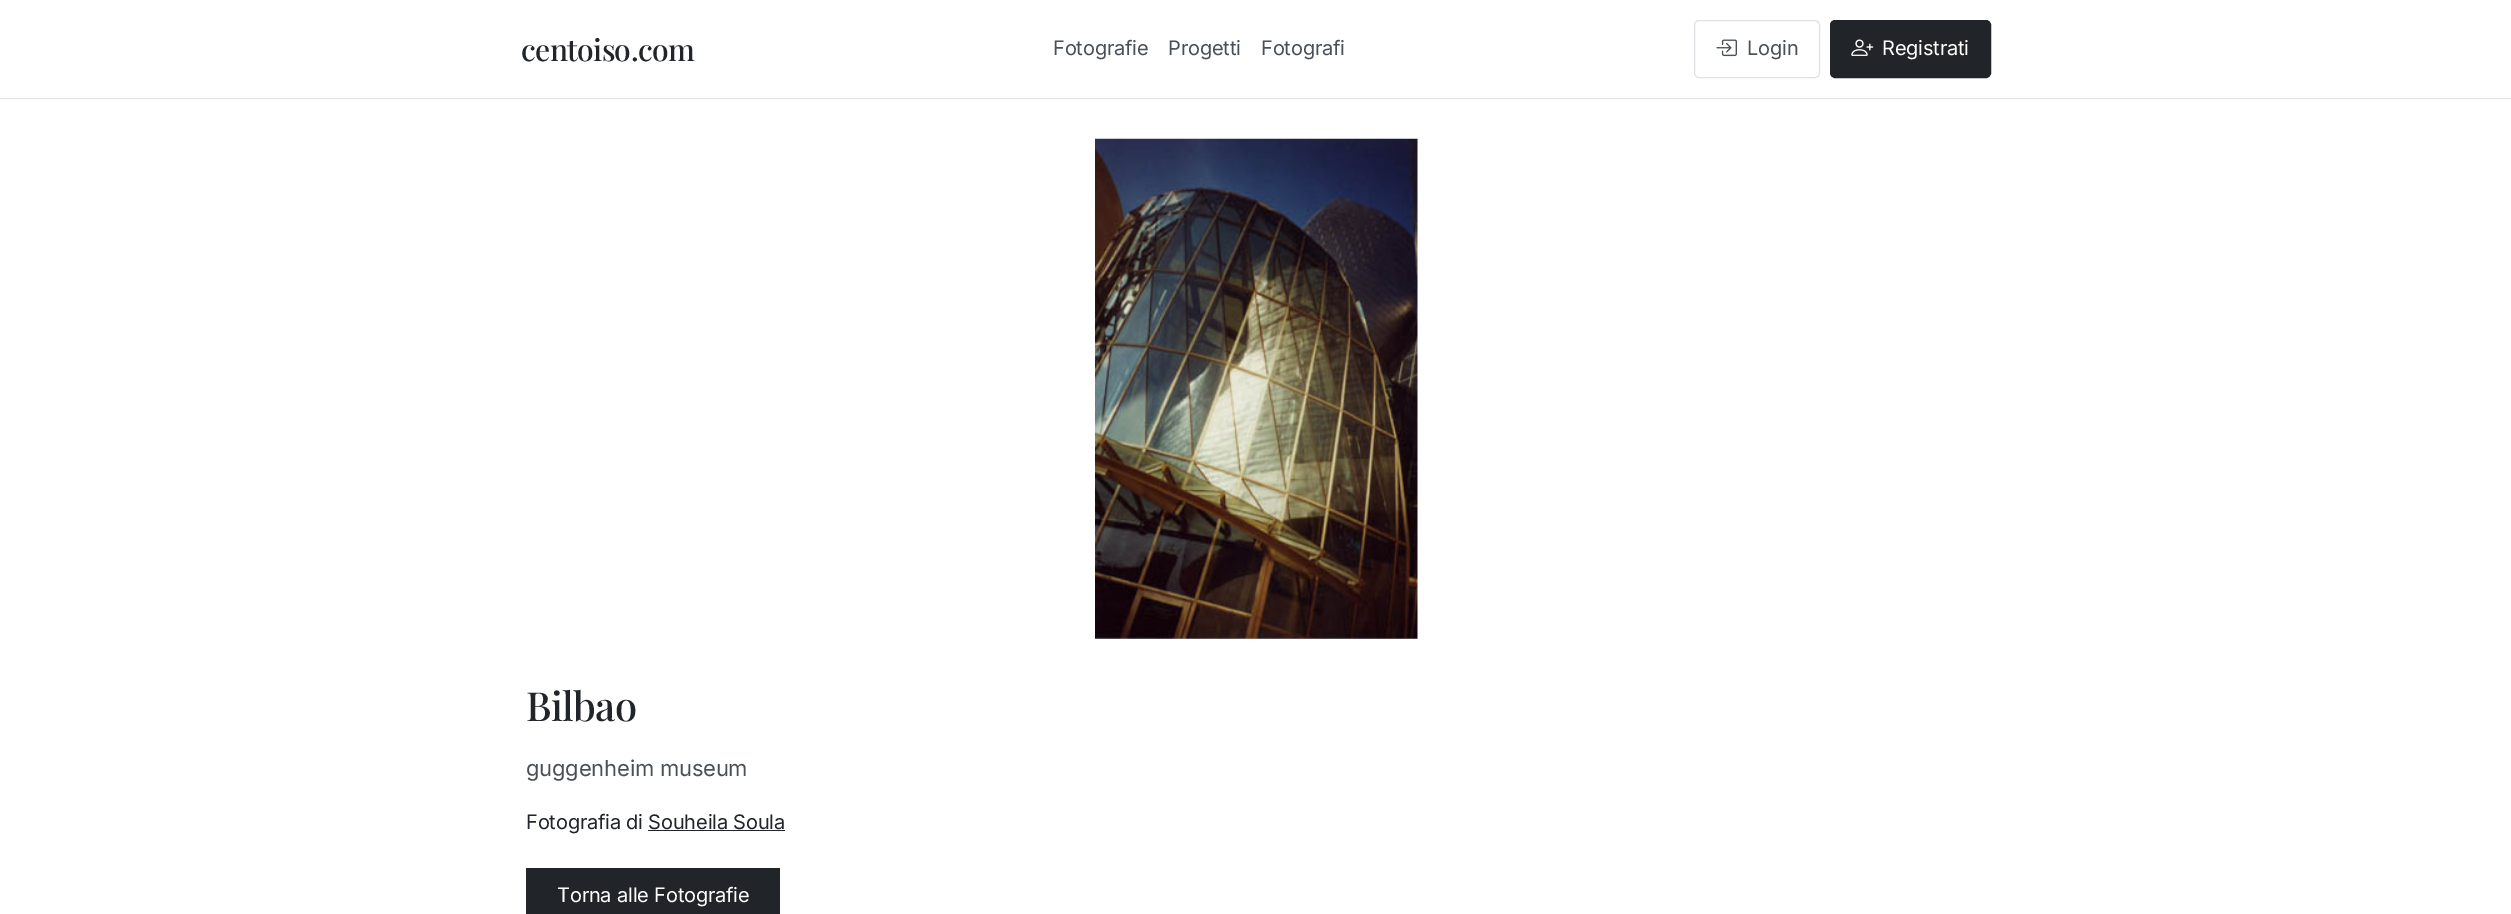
%!PS
<< /PageSize [2511 914] >> setpagedevice
/rgb { 3 { 255 div 3 1 roll } repeat setrgbcolor } def
/font { [ exch dup neg 0 0 3 -1 roll 0 0 ] selectfont } def
/roundrect { 5 dict begin { /r /h /w /y /x } { exch def } forall
  x r add y moveto x w add y 2 copy h add r arct x w add y h add x 1 index r arct
  x y h add x y r arct x y 2 copy exch w add exch r arct closepath end } def
/picture { 5 dict begin { /h /w /y /x /name } { exch def } forall
  gsave x y translate w h scale
  w h 8 [w 0 0 h 0 0] name (r) file false 3 colorimage grestore end } def
0 914 translate 1 -1 scale
4 setmiterlimit
255 255 255 rgb
0 0 2511 914 rectfill
222 226 230 rgb
0 98 2511 1 rectfill
1694.5 20.5 125 57 4.5 roundrect stroke
(img/1.rgb) 1716 39 21 18 picture
33 37 41 rgb
1830.5 20.5 160 57 4.5 roundrect gsave fill grestore
stroke
(img/2.rgb) 1851 39 23 17 picture
(img/3.rgb) 1095 138 323 501 picture
648 830 137 1 rectfill
526 868 254 46 rectfill
/PlayfairDisplay-Medium 30 font
521 61 moveto -0.6 0 (centoiso.com) ashow
/Inter-Regular 20 font
73 80 87 rgb
1053 55 moveto -0.2 0 (Fotografie) ashow
1168 55 moveto -0.2 0 (Progetti) ashow
1261 55 moveto -0.2 0 (Fotografi) ashow
1747 55 moveto -0.2 0 (Login) ashow
255 255 255 rgb
1882 55 moveto -0.2 0 (Registrati) ashow
/PlayfairDisplay-Medium 40 font
33 37 41 rgb
526 721 moveto -0.75 0 (Bilbao) ashow
/Inter-Regular 22 font
73 80 87 rgb
526 776 moveto -0.2 0 (guggenheim museum) ashow
/Inter-Regular 20 font
33 37 41 rgb
526 829 moveto -0.2 0 (Fotografia di Souheila Soula) ashow
255 255 255 rgb
557 902 moveto -0.2 0 (Torna alle Fotografie) ashow
showpage
